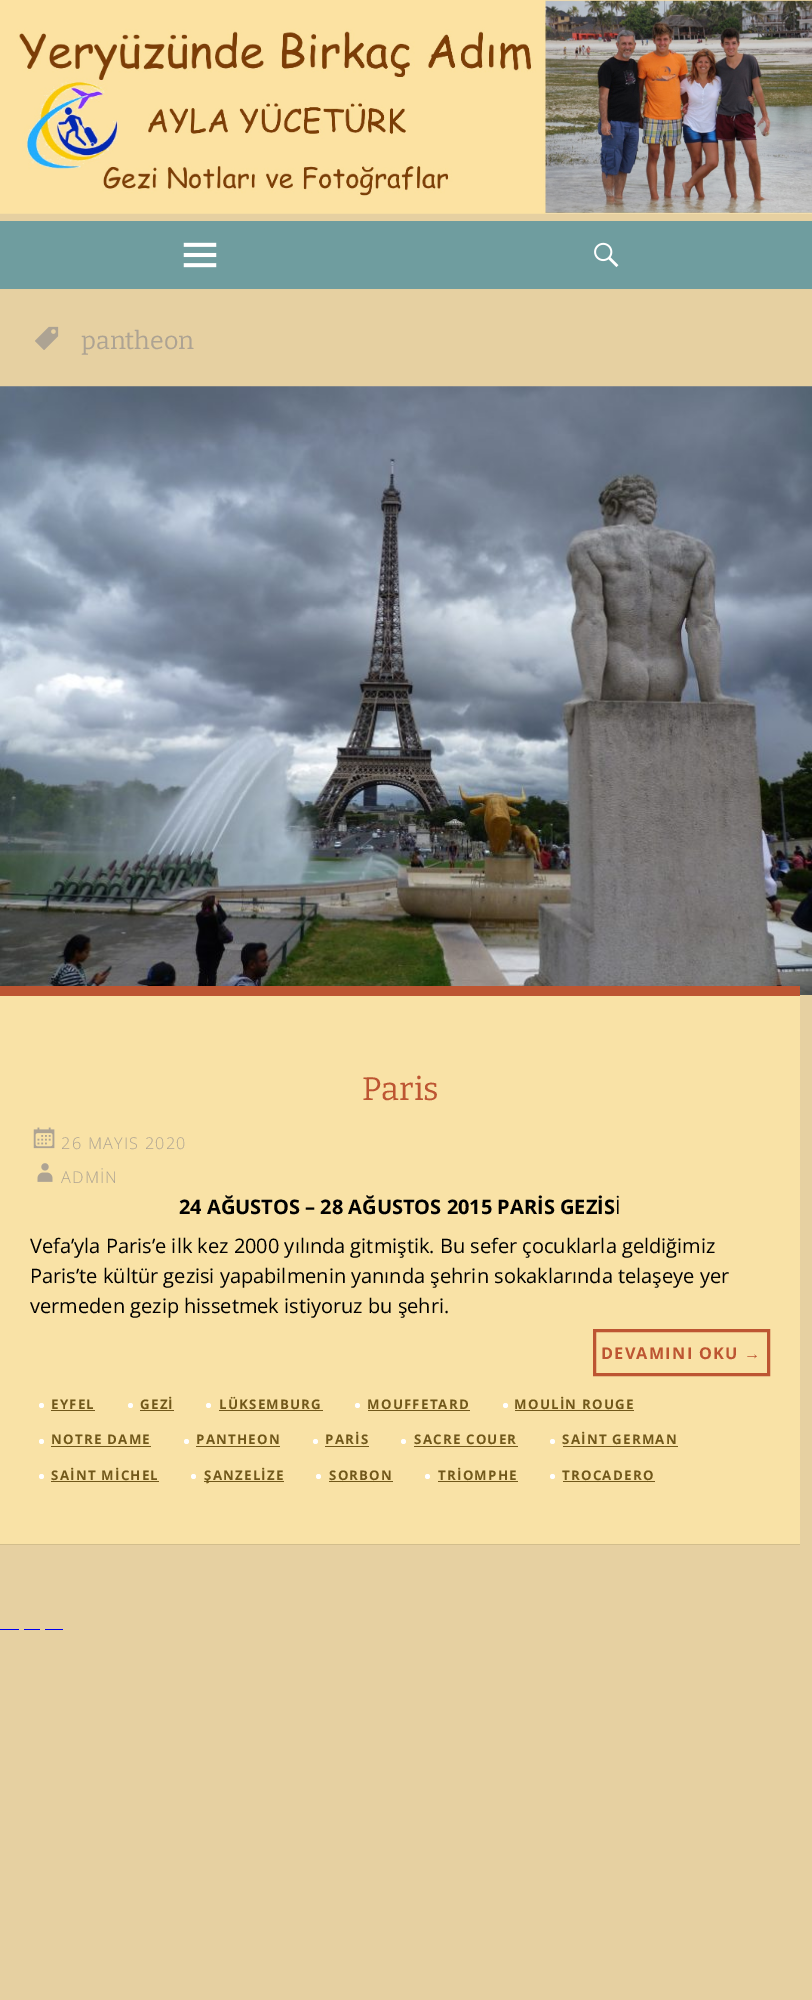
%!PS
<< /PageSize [812 2000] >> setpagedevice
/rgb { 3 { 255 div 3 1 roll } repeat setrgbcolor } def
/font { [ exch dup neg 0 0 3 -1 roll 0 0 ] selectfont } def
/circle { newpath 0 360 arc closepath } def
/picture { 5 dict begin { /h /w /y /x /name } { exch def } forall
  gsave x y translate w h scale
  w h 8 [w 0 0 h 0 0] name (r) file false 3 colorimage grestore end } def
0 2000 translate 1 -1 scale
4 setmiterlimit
230 208 161 rgb
0 0 812 2000 rectfill
(img/1.rgb) 0 0 812 214 picture
111 157 159 rgb
0 221 812 68 rectfill
(img/2.rgb) 183 242 34 26 picture
(img/3.rgb) 594 242 25 26 picture
(img/4.rgb) 35 326 24 24 picture
(img/5.rgb) 0 386 812 609 picture
[
  [0 996 800 548 249 226 166]
  [0 1544 800 1 210 190 140]
  [0 986 800 10 189 85 50]
] { aload pop rgb rectfill } forall
(img/6.rgb) 33 1127 22 22 picture
(img/7.rgb) 37 1163 16 19 picture
3 setlinewidth
594.5 1330.5 174 44 rectstroke
255 255 255 rgb
41.5 1405.5 2.5 circle fill
113 88 26 rgb
51 1410 44 1 rectfill
255 255 255 rgb
130.5 1405.5 2.5 circle fill
113 88 26 rgb
140 1410 34 1 rectfill
255 255 255 rgb
208.5 1405.5 2.5 circle fill
113 88 26 rgb
219 1410 104 1 rectfill
255 255 255 rgb
357.5 1405.5 2.5 circle fill
113 88 26 rgb
368 1410 102 1 rectfill
255 255 255 rgb
505.5 1405.5 2.5 circle fill
113 88 26 rgb
515 1410 119 1 rectfill
255 255 255 rgb
41.5 1441.5 2.5 circle fill
113 88 26 rgb
51 1446 100 1 rectfill
255 255 255 rgb
186.5 1441.5 2.5 circle fill
113 88 26 rgb
196 1446 84 1 rectfill
255 255 255 rgb
315.5 1441.5 2.5 circle fill
113 88 26 rgb
325 1446 44 1 rectfill
255 255 255 rgb
403.5 1441.5 2.5 circle fill
113 88 26 rgb
414 1446 104 1 rectfill
255 255 255 rgb
552.5 1441.5 2.5 circle fill
113 88 26 rgb
563 1446 115 1 rectfill
255 255 255 rgb
41.5 1476.5 2.5 circle fill
113 88 26 rgb
51 1481 108 1 rectfill
255 255 255 rgb
193.5 1476.5 2.5 circle fill
113 88 26 rgb
204 1481 80 1 rectfill
255 255 255 rgb
318.5 1476.5 2.5 circle fill
113 88 26 rgb
329 1481 64 1 rectfill
255 255 255 rgb
427.5 1476.5 2.5 circle fill
113 88 26 rgb
438 1481 80 1 rectfill
255 255 255 rgb
552.5 1476.5 2.5 circle fill
[
  [563 1481 92 1 113 88 26]
  [0 1629 19 1 0 0 238]
  [24 1629 16 1 0 0 238]
  [45 1629 18 1 0 0 238]
] { aload pop rgb rectfill } forall
/Bitter-Regular 25 font
173 163 147 rgb
81 349 moveto (pantheon) show
/Bitter-Regular 32.5 font
189 85 50 rgb
362 1100 moveto (Paris) show
/OpenSans-Light 16.25 font
173 163 147 rgb
61 1149 moveto 1.25 0 (26 MAYIS 2020) ashow
61 1183 moveto 1.25 0 (ADMİN) ashow
/OpenSans-Bold 20 font
0 0 0 rgb
179 1214 moveto (24 AĞUSTOS – 28 AĞUSTOS 2015 PARİS GEZİS) show
/OpenSans-Regular 20 font
[
  [(İ) 615 1214]
  [(Vefa’yla Paris’e ilk kez 2000 yılında gitmiştik. Bu sefer çocuklarla geldiğimiz) 30 1253]
  [(Paris’te kültür gezisi yapabilmenin yanında şehrin sokaklarında telaşeye yer) 30 1283]
  [(vermeden gezip hissetmek istiyoruz bu şehri.) 30 1313]
] { aload pop moveto show } forall
/OpenSans-Bold 16.25 font
189 85 50 rgb
601 1359 moveto 1.25 0 (DEVAMINI OKU) ashow
/LiberationSans-Bold 16.25 font
744 1359 moveto 1.25 0 (→) ashow
/OpenSans-Bold 13.25 font
113 88 26 rgb
51 1409 moveto 1.25 0 (EYFEL) ashow
140 1409 moveto 1.25 0 (GEZİ) ashow
219 1409 moveto 1.25 0 (LÜKSEMBURG) ashow
367 1409 moveto 1.25 0 (MOUFFETARD) ashow
514 1409 moveto 1.25 0 (MOULİN ROUGE) ashow
51 1444 moveto 1.25 0 (NOTRE DAME) ashow
196 1444 moveto 1.25 0 (PANTHEON) ashow
325 1444 moveto 1.25 0 (PARİS) ashow
414 1444 moveto 1.25 0 (SACRE COUER) ashow
562 1444 moveto 1.25 0 (SAİNT GERMAN) ashow
51 1480 moveto 1.25 0 (SAİNT MİCHEL) ashow
204 1480 moveto 1.25 0 (ŞANZELİZE) ashow
329 1480 moveto 1.25 0 (SORBON) ashow
438 1480 moveto 1.25 0 (TRİOMPHE) ashow
562 1480 moveto 1.25 0 (TROCADERO) ashow
showpage
